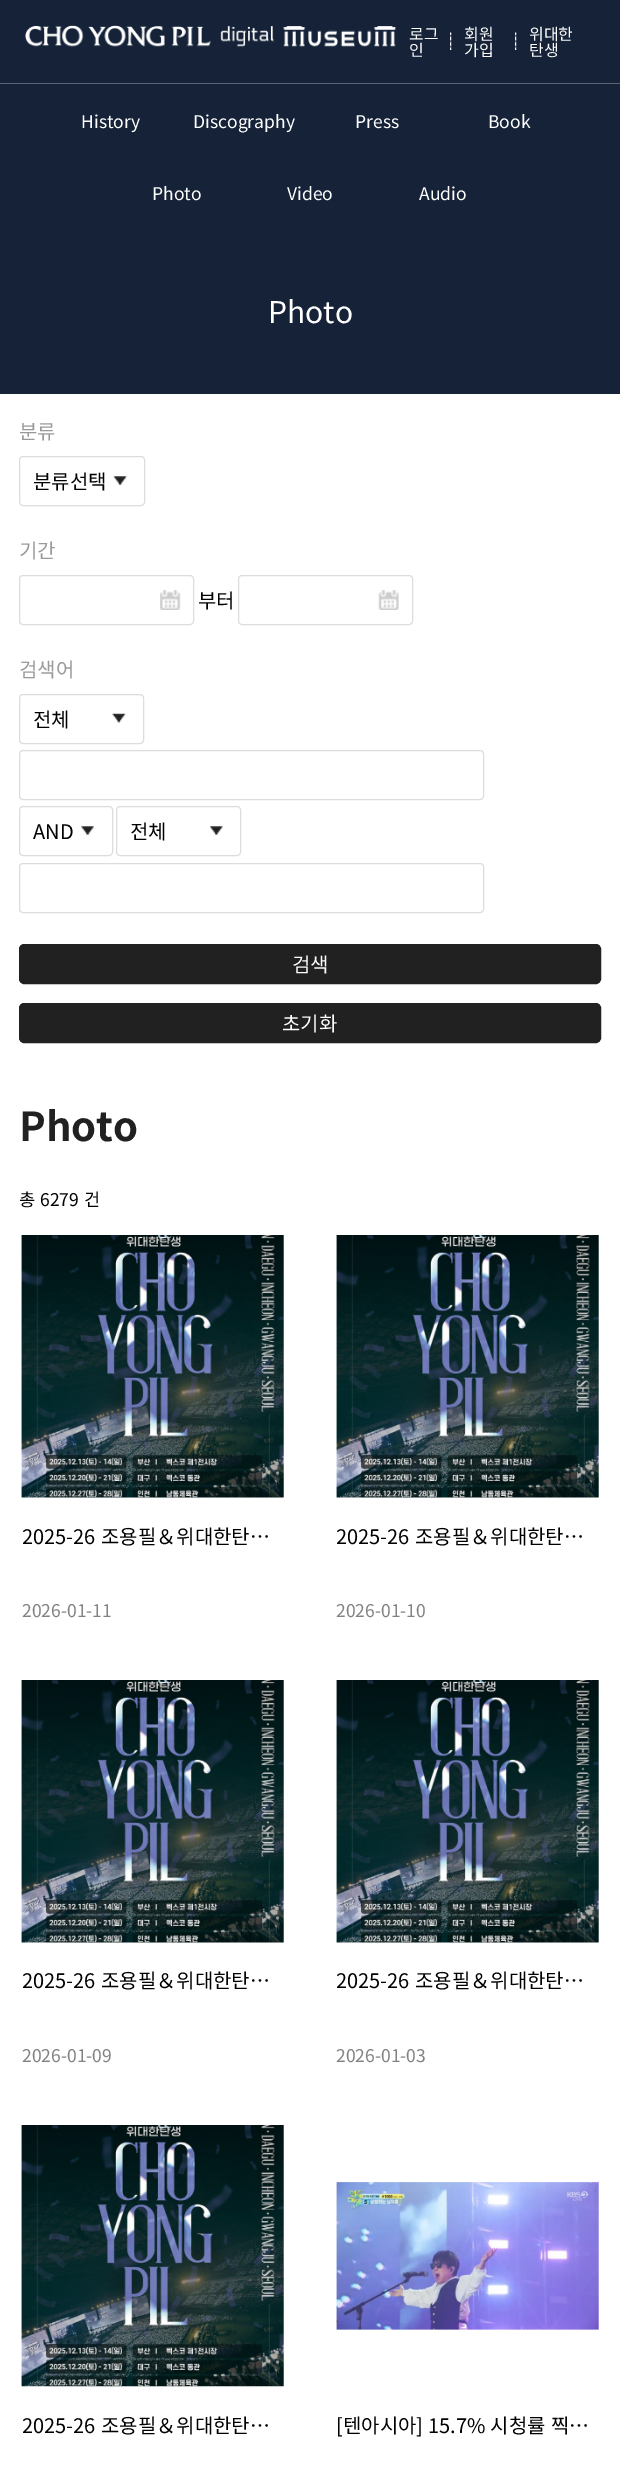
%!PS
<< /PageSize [620 2480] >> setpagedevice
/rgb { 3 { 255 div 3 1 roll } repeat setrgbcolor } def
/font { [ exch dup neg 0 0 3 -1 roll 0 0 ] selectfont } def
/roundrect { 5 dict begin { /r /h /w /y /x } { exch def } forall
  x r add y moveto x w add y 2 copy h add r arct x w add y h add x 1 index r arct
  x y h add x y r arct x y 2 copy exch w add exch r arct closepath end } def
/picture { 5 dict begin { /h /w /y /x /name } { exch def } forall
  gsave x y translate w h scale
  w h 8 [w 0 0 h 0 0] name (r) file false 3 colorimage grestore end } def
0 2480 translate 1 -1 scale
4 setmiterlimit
255 255 255 rgb
0 0 620 2480 rectfill
21 34 56 rgb
0 0 620 83 rectfill
91 100 116 rgb
0 83 620 1 rectfill
(img/1.rgb) 25 25 372 22 picture
(img/2.rgb) 450 32 2 18 picture
(img/2.rgb) 515 32 2 18 picture
21 34 56 rgb
0 84 620 310 rectfill
(img/3.rgb) 113 476 14 9 picture
221 221 221 rgb
19.5 456.5 125 49 3.5 roundrect stroke
(img/4.rgb) 160 590 21 20 picture
19.5 575.5 174 49 3.5 roundrect stroke
(img/5.rgb) 378 590 21 20 picture
238.5 575.5 174 49 3.5 roundrect stroke
(img/6.rgb) 112 713 14 10 picture
19.5 694.5 124 49 3.5 roundrect stroke
19.5 750.5 464 49 3.5 roundrect stroke
(img/7.rgb) 81 826 13 9 picture
19.5 806.5 93 49 3.5 roundrect stroke
(img/8.rgb) 210 826 13 9 picture
116.5 806.5 124 49 3.5 roundrect stroke
19.5 863.5 464 49 3.5 roundrect stroke
33 33 33 rgb
19.5 944.5 581 39 4.5 roundrect gsave fill grestore
stroke
19.5 1003.5 581 39 4.5 roundrect gsave fill grestore
stroke
(img/9.rgb) 21 1235 263 263 picture
(img/10.rgb) 336 1235 263 263 picture
(img/9.rgb) 21 1680 263 263 picture
(img/10.rgb) 336 1680 263 263 picture
(img/11.rgb) 21 2125 263 262 picture
(img/12.rgb) 336 2182 263 148 picture
/NotoSansKR-Regular 16 font
255 255 255 rgb
[
  [(로그) 409 40]
  [(인) 409 56]
  [(회원) 464 40]
  [(가입) 464 56]
  [(위대한) 529 40]
  [(탄생) 529 56]
] { aload pop moveto show } forall
/NotoSansKR-Regular 17.5 font
[
  [(History) 81 128]
  [(Discography) 193 128]
  [(Press) 355 128]
  [(Book) 488 128]
  [(Photo) 152 200]
  [(Video) 287 200]
  [(Audio) 419 200]
] { aload pop moveto show } forall
/NotoSansKR-Regular 30 font
268 323 moveto (Photo) show
/NotoSansKR-Regular 20 font
153 153 153 rgb
19 439 moveto (분류) show
0 0 0 rgb
33 489 moveto (분류선택) show
153 153 153 rgb
19 558 moveto (기간) show
0 0 0 rgb
198 608 moveto (부터) show
153 153 153 rgb
19 677 moveto (검색어) show
0 0 0 rgb
[
  [(전체) 33 727]
  [(AND) 33 839]
  [(전체) 130 839]
] { aload pop moveto show } forall
255 255 255 rgb
292 972 moveto (검색) show
282 1031 moveto (초기화) show
/NotoSansKR-Bold 40 font
33 33 33 rgb
19 1141 moveto (Photo) show
/NotoSansKR-Regular 17.5 font
0 0 0 rgb
19 1206 moveto 1 0 32 (총 6279 건) widthshow
/NotoSansKR-Regular 20 font
22 1544 moveto 1 0 32 (2025-26 조용필＆위대한탄…) widthshow
/NotoSansKR-Regular 17.5 font
130 130 130 rgb
22 1617 moveto (2026-01-11) show
/NotoSansKR-Regular 20 font
0 0 0 rgb
336 1544 moveto 1 0 32 (2025-26 조용필＆위대한탄…) widthshow
/NotoSansKR-Regular 17.5 font
130 130 130 rgb
336 1617 moveto (2026-01-10) show
/NotoSansKR-Regular 20 font
0 0 0 rgb
22 1988 moveto 1 0 32 (2025-26 조용필＆위대한탄…) widthshow
/NotoSansKR-Regular 17.5 font
130 130 130 rgb
22 2062 moveto (2026-01-09) show
/NotoSansKR-Regular 20 font
0 0 0 rgb
336 1988 moveto 1 0 32 (2025-26 조용필＆위대한탄…) widthshow
/NotoSansKR-Regular 17.5 font
130 130 130 rgb
336 2062 moveto (2026-01-03) show
/NotoSansKR-Regular 20 font
0 0 0 rgb
22 2433 moveto 1 0 32 (2025-26 조용필＆위대한탄…) widthshow
336 2433 moveto 0.5 0 32 ([텐아시아] 15.7% 시청률 찍…) widthshow
showpage
